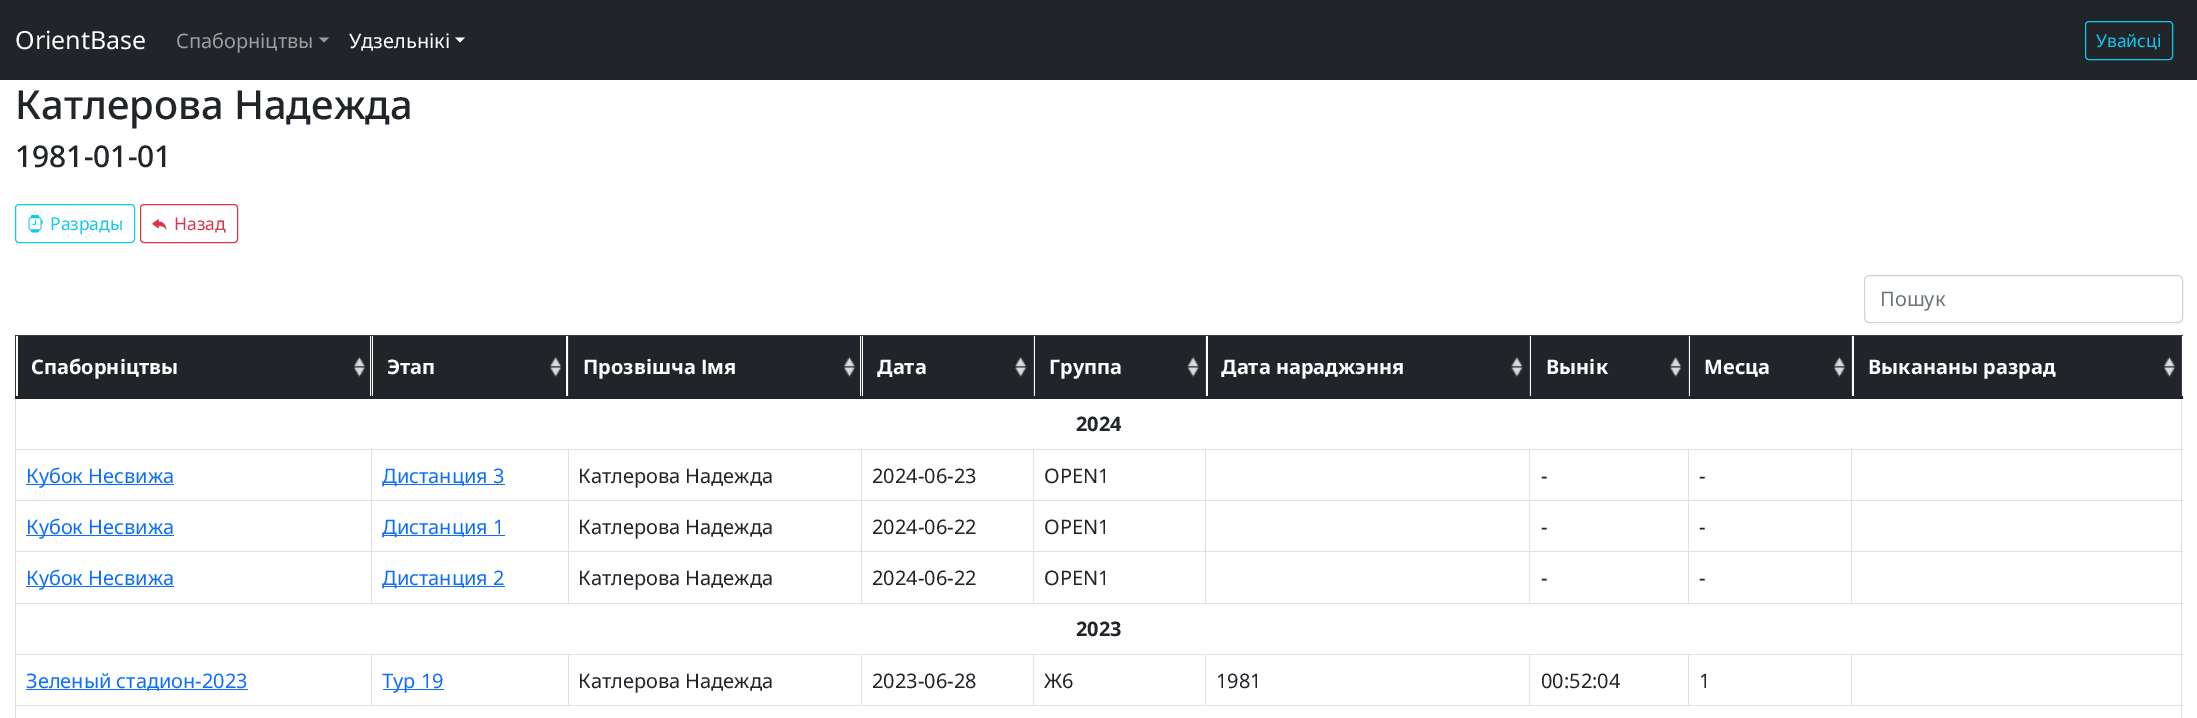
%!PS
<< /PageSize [2197 718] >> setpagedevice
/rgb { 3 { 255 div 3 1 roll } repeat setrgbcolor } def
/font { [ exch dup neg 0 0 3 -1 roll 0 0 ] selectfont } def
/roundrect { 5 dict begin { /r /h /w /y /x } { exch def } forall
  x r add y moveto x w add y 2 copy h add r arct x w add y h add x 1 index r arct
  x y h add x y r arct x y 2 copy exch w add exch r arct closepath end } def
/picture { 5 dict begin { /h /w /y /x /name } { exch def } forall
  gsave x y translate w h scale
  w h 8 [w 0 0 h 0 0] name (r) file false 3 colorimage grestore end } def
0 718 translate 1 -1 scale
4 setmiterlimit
255 255 255 rgb
0 0 2197 718 rectfill
33 37 41 rgb
0 0 2197 80 rectfill
155 157 159 rgb
319 37.5 moveto 329 37.5 lineto 324 42.5 lineto closepath fill
255 255 255 rgb
455 37.5 moveto 465 37.5 lineto 460 42.5 lineto closepath fill
13 202 240 rgb
2085.5 21.5 87 38 3.5 roundrect stroke
15.5 204.5 119 38 3.5 roundrect stroke
(img/1.rgb) 28 215 15 18 picture
220 53 69 rgb
140.5 204.5 97 38 3.5 roundrect stroke
(img/2.rgb) 152 219 15 11 picture
206 212 218 rgb
1864.5 275.5 318 47 4.5 roundrect stroke
[
  [15 335 2168 1 55 59 62]
  [18 336 352 60 33 37 41]
  [15 449 2168 1 222 226 230]
  [15 500 2168 1 222 226 230]
  [15 551 2168 1 222 226 230]
  [15 603 2168 1 222 226 230]
  [15 654 2168 1 222 226 230]
  [15 705 2168 1 222 226 230]
  [15 398 1 320 222 226 230]
  [15 335 1 64 55 59 62]
] { aload pop rgb rectfill } forall
(img/3.rgb) 353 357 13 20 picture
33 37 41 rgb
373 336 193 60 rectfill
55 59 62 rgb
371 335 1 64 rectfill
(img/4.rgb) 550 357 12 20 picture
33 37 41 rgb
569 336 291 60 rectfill
55 59 62 rgb
568 335 1 64 rectfill
(img/3.rgb) 843 357 13 20 picture
33 37 41 rgb
863 336 170 60 rectfill
55 59 62 rgb
861 335 1 64 rectfill
(img/4.rgb) 1015 357 12 20 picture
33 37 41 rgb
1035 336 170 60 rectfill
55 59 62 rgb
1033 335 1 64 rectfill
(img/5.rgb) 1187 357 12 20 picture
33 37 41 rgb
1208 336 321 60 rectfill
55 59 62 rgb
1205 335 1 64 rectfill
(img/6.rgb) 1511 357 12 20 picture
33 37 41 rgb
1531 336 157 60 rectfill
55 59 62 rgb
1529 335 1 64 rectfill
(img/7.rgb) 1670 357 12 20 picture
33 37 41 rgb
1690 336 161 60 rectfill
55 59 62 rgb
1688 335 1 64 rectfill
(img/3.rgb) 1833 357 13 20 picture
[
  [1854 336 327 60 33 37 41]
  [2181 398 1 320 222 226 230]
  [2181 335 1 64 55 59 62]
  [1851 335 1 64 55 59 62]
] { aload pop rgb rectfill } forall
(img/8.rgb) 2163 357 13 20 picture
[
  [15 396 2168 3 33 37 41]
  [26 484 148 1 13 110 253]
  [383 484 122 1 13 110 253]
  [26 535 148 1 13 110 253]
  [383 535 122 1 13 110 253]
  [26 586 148 1 13 110 253]
  [371 449 1 155 222 226 230]
  [383 586 122 1 13 110 253]
  [568 449 1 155 222 226 230]
  [861 449 1 155 222 226 230]
  [1033 449 1 155 222 226 230]
  [1205 449 1 155 222 226 230]
  [1529 449 1 155 222 226 230]
  [1688 449 1 155 222 226 230]
  [1851 449 1 155 222 226 230]
  [26 689 222 1 13 110 253]
  [371 654 1 52 222 226 230]
  [383 689 61 1 13 110 253]
  [568 654 1 52 222 226 230]
  [861 654 1 52 222 226 230]
  [1033 654 1 52 222 226 230]
  [1205 654 1 52 222 226 230]
  [1529 654 1 52 222 226 230]
  [1688 654 1 52 222 226 230]
  [1851 654 1 52 222 226 230]
] { aload pop rgb rectfill } forall
/NotoSans-Regular 25 font
255 255 255 rgb
15 49 moveto (OrientBase) show
/NotoSans-Regular 20 font
155 157 159 rgb
176 48 moveto (Спаборніцтвы) show
255 255 255 rgb
349 48 moveto (Удзельнікі) show
/NotoSans-Regular 17.5 font
13 202 240 rgb
2096 47 moveto (Увайсці) show
/NotoSans-Medium 40 font
33 37 41 rgb
15 119 moveto (Катлерова Надежда) show
/NotoSans-Medium 30 font
15 167 moveto (1981-01-01) show
/NotoSans-Regular 17.5 font
13 202 240 rgb
50 230 moveto (Разрады) show
220 53 69 rgb
174 230 moveto (Назад) show
/NotoSans-Regular 20 font
108 117 125 rgb
1880 306 moveto (Пошук) show
/NotoSans-Bold 20 font
255 255 255 rgb
[
  [(Спаборніцтвы) 31 374]
  [(Этап) 387 374]
  [(Прозвішча Імя) 583 374]
  [(Дата) 877 374]
  [(Группа) 1049 374]
  [(Дата нараджэння) 1221 374]
  [(Вынік) 1546 374]
  [(Месца) 1704 374]
  [(Выкананы разрад) 1868 374]
] { aload pop moveto show } forall
33 37 41 rgb
1076 431 moveto (2024) show
/NotoSans-Regular 20 font
13 110 253 rgb
26 483 moveto (Кубок Несвижа) show
382 483 moveto (Дистанция 3) show
33 37 41 rgb
[
  [(Катлерова Надежда) 578 483]
  [(2024-06-23) 872 483]
  [(OPEN1) 1044 483]
  [(-) 1541 483]
  [(-) 1699 483]
] { aload pop moveto show } forall
13 110 253 rgb
26 534 moveto (Кубок Несвижа) show
382 534 moveto (Дистанция 1) show
33 37 41 rgb
[
  [(Катлерова Надежда) 578 534]
  [(2024-06-22) 872 534]
  [(OPEN1) 1044 534]
  [(-) 1541 534]
  [(-) 1699 534]
] { aload pop moveto show } forall
13 110 253 rgb
26 585 moveto (Кубок Несвижа) show
382 585 moveto (Дистанция 2) show
33 37 41 rgb
[
  [(Катлерова Надежда) 578 585]
  [(2024-06-22) 872 585]
  [(OPEN1) 1044 585]
  [(-) 1541 585]
  [(-) 1699 585]
] { aload pop moveto show } forall
/NotoSans-Bold 20 font
1076 636 moveto (2023) show
/NotoSans-Regular 20 font
13 110 253 rgb
26 688 moveto (Зеленый стадион-2023) show
382 688 moveto (Тур 19) show
33 37 41 rgb
[
  [(Катлерова Надежда) 578 688]
  [(2023-06-28) 872 688]
  [(Ж6) 1044 688]
  [(1981) 1216 688]
  [(00:52:04) 1541 688]
  [(1) 1699 688]
] { aload pop moveto show } forall
showpage
